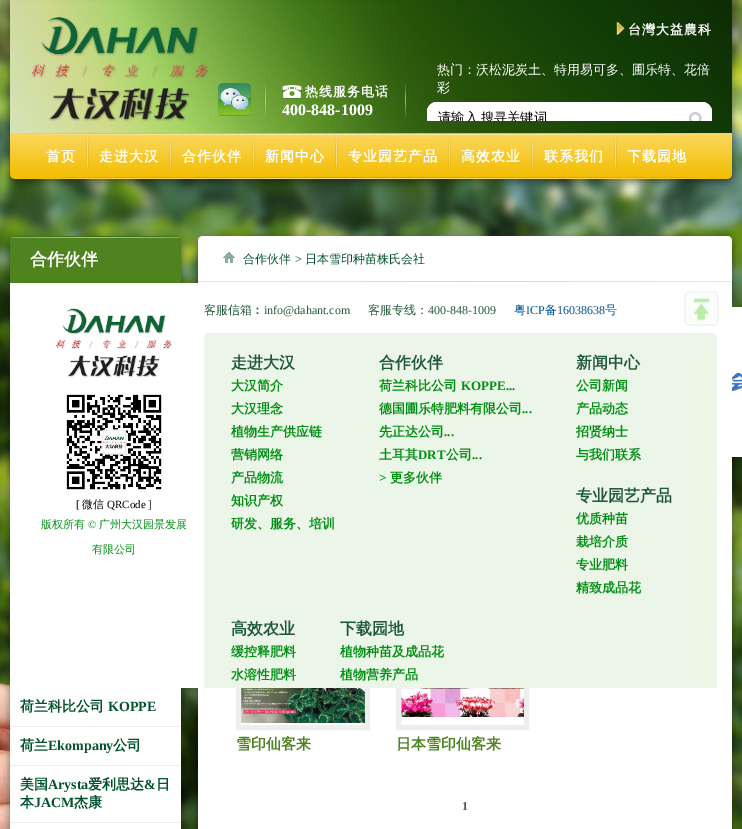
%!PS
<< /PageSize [742 829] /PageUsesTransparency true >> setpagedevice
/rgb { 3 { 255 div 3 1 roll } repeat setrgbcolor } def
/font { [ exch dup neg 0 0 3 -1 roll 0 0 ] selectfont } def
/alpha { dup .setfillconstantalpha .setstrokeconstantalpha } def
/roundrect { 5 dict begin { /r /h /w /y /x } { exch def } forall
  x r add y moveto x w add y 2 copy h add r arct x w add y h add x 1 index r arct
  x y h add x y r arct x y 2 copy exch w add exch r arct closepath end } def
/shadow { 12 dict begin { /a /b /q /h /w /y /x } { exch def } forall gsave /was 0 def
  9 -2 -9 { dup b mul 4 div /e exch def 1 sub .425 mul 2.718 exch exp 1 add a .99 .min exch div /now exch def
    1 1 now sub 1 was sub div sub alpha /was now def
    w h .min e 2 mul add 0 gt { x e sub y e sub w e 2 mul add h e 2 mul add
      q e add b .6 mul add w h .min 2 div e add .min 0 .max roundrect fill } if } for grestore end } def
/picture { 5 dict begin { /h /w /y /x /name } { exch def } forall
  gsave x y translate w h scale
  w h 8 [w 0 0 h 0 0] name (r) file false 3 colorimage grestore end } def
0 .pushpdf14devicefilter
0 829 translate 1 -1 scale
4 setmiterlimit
255 255 255 rgb
0 0 742 829 rectfill
(img/1.rgb) 0 0 742 829 picture
(img/2.rgb) 0 682 10 147 picture
0 0 0 rgb
10 3 722 179 5 4.5 0.5 shadow
(img/3.rgb) 10 0 722 133 picture
(img/4.rgb) 31 17 178 105 picture
(img/5.rgb) 616 22 9 14 picture
(img/6.rgb) 218 83 33 33 picture
(img/7.rgb) 264 82 3 36 picture
(img/8.rgb) 282 85 20 14 picture
(img/9.rgb) 405 82 1 37 picture
255 255 255 rgb
437 102 moveto 702 102 lineto 707.5 102 712 106.5 712 112 curveto 712 121 lineto 427 121 lineto 427 112 lineto 427 106.5 431.5 102 437 102 curveto closepath fill
gsave
427 56 285 65 rectclip
427.5 102.5 284 34 9.5 roundrect stroke
grestore
(img/10.rgb) 688 112 14 9 picture
(img/11.rgb) 10 133 722 46 picture
(img/12.rgb) 21 133 700 2 picture
(img/13.rgb) 86 135 3 37 picture
(img/13.rgb) 169 135 3 37 picture
(img/13.rgb) 252 135 3 37 picture
(img/13.rgb) 335 135 3 37 picture
(img/13.rgb) 448 135 3 37 picture
(img/13.rgb) 531 135 3 37 picture
(img/13.rgb) 614 135 3 37 picture
(img/14.rgb) 19 177 703 2 picture
0 0 0 rgb
10 239 171 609 5 4.5 0.5 shadow
79 131 32 rgb
15 236 moveto 176 236 lineto 179 236 181 238 181 241 curveto 181 283 lineto 10 283 lineto 10 241 lineto 10 238 12 236 15 236 curveto closepath fill
(img/15.rgb) 11 236 169 2 picture
255 255 255 rgb
10 283 171 546 rectfill
(img/16.rgb) 10 284 2 1 picture
[
  [10 726 171 1 237 237 237]
  [10 765 171 1 237 237 237]
  [10 822 171 1 237 237 237]
] { aload pop rgb rectfill } forall
0 0 0 rgb
198 239 534 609 5 4.5 0.5 shadow
255 255 255 rgb
203 236 moveto 727 236 lineto 730 236 732 238 732 241 curveto 732 829 lineto 198 829 lineto 198 241 lineto 198 238 200 236 203 236 curveto closepath fill
(img/17.rgb) 198 281 534 1 picture
(img/18.rgb) 223 252 12 11 picture
732 307 10 150 rectfill
(img/19.rgb) 732 366 10 31 picture
(img/20.rgb) 241 688 124 35 picture
238 238 238 rgb
5 setlinewidth
238.5 642.5 moveto 367.5 642.5 lineto 367.5 727.5 lineto 238.5 727.5 lineto closepath stroke
(img/21.rgb) 401 688 123 29 picture
398.5 642.5 moveto 526.5 642.5 lineto 526.5 727.5 lineto 398.5 727.5 lineto closepath stroke
255 255 255 rgb
15 283 moveto 727 283 lineto 730 283 732 285 732 288 curveto 732 688 lineto 10 688 lineto 10 288 lineto 10 285 12 283 15 283 curveto closepath fill
(img/22.rgb) 55 308 117 70 picture
(img/23.rgb) 66 394 96 96 picture
235 245 232 rgb
209 333 moveto 712 333 lineto 715 333 717 335 717 338 curveto 717 688 lineto 204 688 lineto 204 338 lineto 204 335 206 333 209 333 curveto closepath fill
(img/24.rgb) 684 291 35 35 picture
/WenQuanYiZenHei-Bold 13 font
255 255 255 rgb
628 34 moveto 1 0 (台灣大益農科) ashow
305 96 moveto 1 0 (热线服务电话) ashow
/LiberationSerif-Bold 16 font
282 115 moveto (400-848-1009) show
/WenQuanYiZenHei-Medium 13 font
437 74 moveto (热门：沃松泥炭土、特用易可多、圃乐特、花倍) show
437 92 moveto (彩) show
gsave
438 109 190 12 rectclip
/WenQuanYiZenHei-Medium 13.25 font
0 0 0 rgb
438 122 moveto -1 0 32 (请输入 搜寻关键词) widthshow
grestore
/WenQuanYiZenHei-Bold 14 font
46 161 moveto 1 0 (首页) ashow
99 161 moveto 1 0 (走进大汉) ashow
182 161 moveto 1 0 (合作伙伴) ashow
265 161 moveto 1 0 (新闻中心) ashow
348 161 moveto 1 0 (专业园艺产品) ashow
461 161 moveto 1 0 (高效农业) ashow
544 161 moveto 1 0 (联系我们) ashow
627 161 moveto 1 0 (下载园地) ashow
/WenQuanYiZenHei-Bold 17 font
30 265 moveto (合作伙伴) show
/WenQuanYiZenHei-Bold 14 font
0 83 45 rgb
20 711 moveto (荷兰科比公司) show
/LiberationSerif-Bold 14 font
108 711 moveto (KOPPE) show
/WenQuanYiZenHei-Bold 14 font
20 750 moveto (荷兰) show
/LiberationSerif-Bold 14 font
48 750 moveto (Ekompany) show
/WenQuanYiZenHei-Bold 14 font
113 750 moveto (公司) show
20 789 moveto (美国) show
/LiberationSerif-Bold 14 font
48 789 moveto (Arysta) show
/WenQuanYiZenHei-Bold 14 font
88 789 moveto (爱利思达) show
/LiberationSerif-Bold 14 font
144 789 moveto (&) show
/WenQuanYiZenHei-Bold 14 font
156 789 moveto (日) show
20 807 moveto (本) show
/LiberationSerif-Bold 14 font
34 807 moveto (JACM) show
/WenQuanYiZenHei-Bold 14 font
74 807 moveto (杰康) show
/WenQuanYiZenHei-Medium 12 font
243 263 moveto (合作伙伴) show
/LiberationSerif-Regular 12 font
295 263 moveto (>) show
/WenQuanYiZenHei-Medium 12 font
305 263 moveto (日本雪印种苗株氏会社) show
/WenQuanYiZenHei-Bold 15 font
79 131 32 rgb
236 749 moveto (雪印仙客来) show
396 749 moveto (日本雪印仙客来) show
/LiberationSerif-Bold 12 font
85 85 85 rgb
462 810 moveto (1) show
/LiberationSerif-Regular 11 font
0 0 0 rgb
76 508 moveto ([) show
/WenQuanYiZenHei-Medium 11 font
82 508 moveto (微信) show
/LiberationSerif-Regular 11 font
107 508 moveto (QRCode ]) show
/WenQuanYiZenHei-Medium 11 font
0 142 19 rgb
41 528 moveto (版权所有) show
/LiberationSerif-Regular 11 font
88 528 moveto (©) show
/WenQuanYiZenHei-Medium 11 font
99 528 moveto (广州大汉园景发展) show
92 553 moveto (有限公司) show
/WenQuanYiZenHei-Medium 12 font
33 89 56 rgb
204 314 moveto (客服信箱︰) show
/LiberationSerif-Regular 12 font
264 314 moveto (info@dahant.com) show
/WenQuanYiZenHei-Medium 12 font
368 314 moveto (客服专线：) show
/LiberationSerif-Regular 12 font
428 314 moveto (400-848-1009) show
/WenQuanYiZenHei-Medium 12 font
1 81 152 rgb
514 314 moveto (粤) show
/LiberationSerif-Regular 12 font
526 314 moveto (ICP) show
/WenQuanYiZenHei-Medium 12 font
545 314 moveto (备) show
/LiberationSerif-Regular 12 font
557 314 moveto (16038638) show
/WenQuanYiZenHei-Medium 12 font
605 314 moveto (号) show
/WenQuanYiZenHei-Bold 16 font
33 89 56 rgb
231 368 moveto (走进大汉) show
/WenQuanYiZenHei-Bold 13 font
0 142 19 rgb
[
  [(大汉简介) 231 390]
  [(大汉理念) 231 413]
  [(植物生产供应链) 231 436]
  [(营销网络) 231 459]
  [(产品物流) 231 482]
  [(知识产权) 231 505]
  [(研发、服务、培训) 231 528]
] { aload pop moveto show } forall
/WenQuanYiZenHei-Bold 16 font
33 89 56 rgb
379 368 moveto (合作伙伴) show
/WenQuanYiZenHei-Bold 13 font
0 142 19 rgb
379 390 moveto (荷兰科比公司) show
/LiberationSerif-Bold 13 font
461 390 moveto (KOPPE...) show
/WenQuanYiZenHei-Bold 13 font
379 413 moveto (德国圃乐特肥料有限公司) show
/LiberationSerif-Bold 13 font
522 413 moveto (...) show
/WenQuanYiZenHei-Bold 13 font
379 436 moveto (先正达公司) show
/LiberationSerif-Bold 13 font
444 436 moveto (...) show
/WenQuanYiZenHei-Bold 13 font
379 459 moveto (土耳其) show
/LiberationSerif-Bold 13 font
418 459 moveto (DRT) show
/WenQuanYiZenHei-Bold 13 font
446 459 moveto (公司) show
/LiberationSerif-Bold 13 font
472 459 moveto (...) show
379 482 moveto (>) show
/WenQuanYiZenHei-Bold 13 font
390 482 moveto (更多伙伴) show
/WenQuanYiZenHei-Bold 16 font
33 89 56 rgb
576 368 moveto (新闻中心) show
/WenQuanYiZenHei-Bold 13 font
0 142 19 rgb
[
  [(公司新闻) 576 390]
  [(产品动态) 576 413]
  [(招贤纳士) 576 436]
  [(与我们联系) 576 459]
] { aload pop moveto show } forall
/WenQuanYiZenHei-Bold 16 font
33 89 56 rgb
576 501 moveto (专业园艺产品) show
/WenQuanYiZenHei-Bold 13 font
0 142 19 rgb
[
  [(优质种苗) 576 523]
  [(栽培介质) 576 546]
  [(专业肥料) 576 569]
  [(精致成品花) 576 592]
] { aload pop moveto show } forall
/WenQuanYiZenHei-Bold 16 font
33 89 56 rgb
231 634 moveto (高效农业) show
/WenQuanYiZenHei-Bold 13 font
0 142 19 rgb
231 656 moveto (缓控释肥料) show
231 679 moveto (水溶性肥料) show
/WenQuanYiZenHei-Bold 16 font
33 89 56 rgb
340 634 moveto (下载园地) show
/WenQuanYiZenHei-Bold 13 font
0 142 19 rgb
340 656 moveto (植物种苗及成品花) show
340 679 moveto (植物营养产品) show
.poppdf14devicefilter showpage
